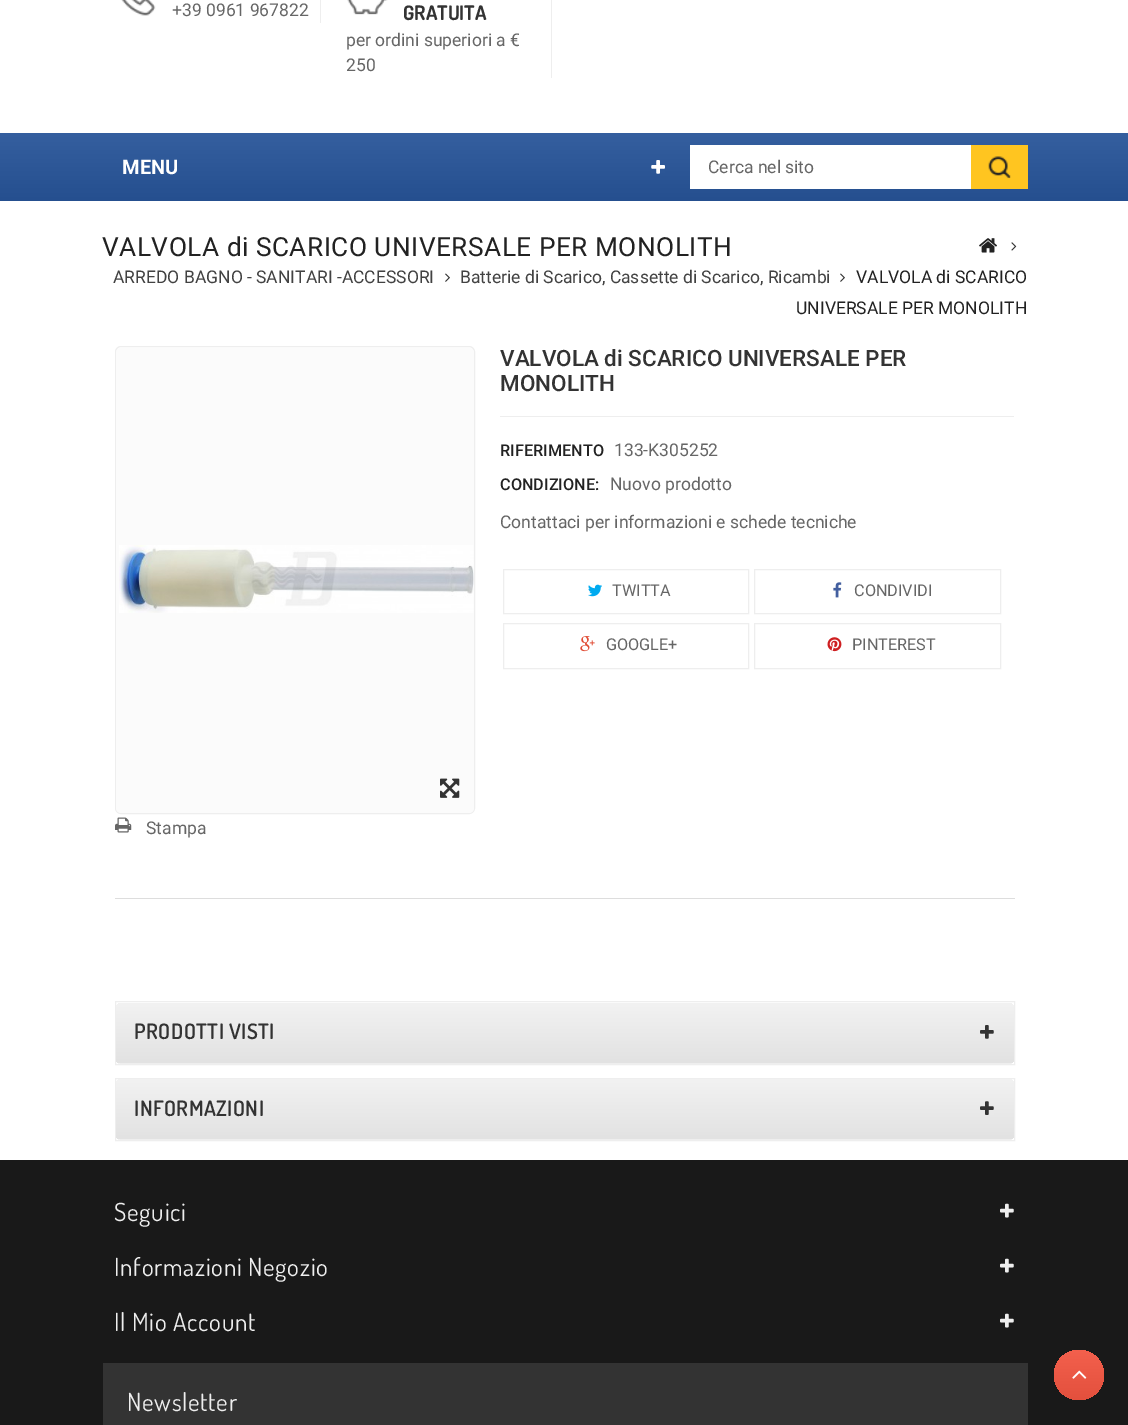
%!PS
<< /PageSize [1128 1425] >> setpagedevice
/rgb { 3 { 255 div 3 1 roll } repeat setrgbcolor } def
/font { [ exch dup neg 0 0 3 -1 roll 0 0 ] selectfont } def
/circle { newpath 0 360 arc closepath } def
/roundrect { 5 dict begin { /r /h /w /y /x } { exch def } forall
  x r add y moveto x w add y 2 copy h add r arct x w add y h add x 1 index r arct
  x y h add x y r arct x y 2 copy exch w add exch r arct closepath end } def
/picture { 5 dict begin { /h /w /y /x /name } { exch def } forall
  gsave x y translate w h scale
  w h 8 [w 0 0 h 0 0] name (r) file false 3 colorimage grestore end } def
0 1425 translate 1 -1 scale
4 setmiterlimit
255 255 255 rgb
0 0 1128 1425 rectfill
(img/1.rgb) 121 0 35 16 picture
238 238 238 rgb
320 0 1 23 rectfill
(img/2.rgb) 347 0 41 15 picture
551 0 1 78 rectfill
gsave 0 133 moveto 1128 133 lineto 1128 201 lineto 0 201 lineto closepath clip newpath
<< /ShadingType 2 /ColorSpace /DeviceRGB /Coords [564 132 564 201] /Extend [true true] /Function << /FunctionType 2 /Domain [0 1] /C0 [0.208 0.373 0.624] /C1 [0.145 0.31 0.561] /N 1 >> >> shfill grestore
(img/3.rgb) 651 160 14 14 picture
255 255 255 rgb
690 145 281 44 rectfill
255 197 32 rgb
971 145 57 44 rectfill
(img/4.rgb) 988 156 23 23 picture
(img/5.rgb) 979 238 18 15 picture
(img/6.rgb) 1011 242 6 9 picture
(img/7.rgb) 445 273 5 9 picture
(img/7.rgb) 840 273 5 9 picture
238 238 238 rgb
500 416 514 1 rectfill
503.5 569.5 245 44 rectstroke
(img/8.rgb) 588 584 14 13 picture
754.5 569.5 246 44 rectstroke
(img/9.rgb) 833 582 9 16 picture
503.5 623.5 245 45 rectstroke
(img/10.rgb) 580 636 15 16 picture
754.5 623.5 246 45 rectstroke
(img/11.rgb) 827 637 15 15 picture
115.5 346.5 359 467 5.5 roundrect stroke
251 251 251 rgb
116 348 358 465 5 roundrect fill
(img/12.rgb) 119 545 355 68 picture
(img/13.rgb) 440 778 20 20 picture
(img/14.rgb) 115 817 17 16 picture
221 221 221 rgb
115 898 900 1 rectfill
238 238 238 rgb
115.5 1001.5 899 63 rectstroke
gsave
116 1003 898 61 6 roundrect clip newpath
gsave 122 1003 moveto 1008 1003 lineto 1011.5 1003 1014 1005.5 1014 1009 curveto 1014 1063 lineto 116 1063 lineto 116 1009 lineto 116 1005.5 118.5 1003 122 1003 curveto closepath clip newpath
<< /ShadingType 2 /ColorSpace /DeviceRGB /Coords [565 1003 565 1063] /Extend [true true] /Function << /FunctionType 2 /Domain [0 1] /C0 [0.949 0.949 0.949] /C1 [0.886 0.886 0.886] /N 1 >> >> shfill grestore
gsave 116 1063 moveto 1014 1063 lineto 1014 1064 lineto 116 1064 lineto closepath clip newpath
<< /ShadingType 2 /ColorSpace /DeviceRGB /Coords [565 1063 565 1123] /Extend [true true] /Function << /FunctionType 2 /Domain [0 1] /C0 [0.949 0.949 0.949] /C1 [0.886 0.886 0.886] /N 1 >> >> shfill grestore
grestore
120 1063 891 1 rectfill
(img/15.rgb) 980 1025 14 14 picture
115.5 1078.5 899 62 rectstroke
gsave
116 1079 898 61 6 roundrect clip newpath
gsave 122 1079 moveto 1008 1079 lineto 1011.5 1079 1014 1081.5 1014 1085 curveto 1014 1139 lineto 116 1139 lineto 116 1085 lineto 116 1081.5 118.5 1079 122 1079 curveto closepath clip newpath
<< /ShadingType 2 /ColorSpace /DeviceRGB /Coords [565 1079 565 1139] /Extend [true true] /Function << /FunctionType 2 /Domain [0 1] /C0 [0.949 0.949 0.949] /C1 [0.886 0.886 0.886] /N 1 >> >> shfill grestore
gsave 116 1139 moveto 1014 1139 lineto 1014 1140 lineto 116 1140 lineto closepath clip newpath
<< /ShadingType 2 /ColorSpace /DeviceRGB /Coords [565 1139 565 1199] /Extend [true true] /Function << /FunctionType 2 /Domain [0 1] /C0 [0.949 0.949 0.949] /C1 [0.886 0.886 0.886] /N 1 >> >> shfill grestore
grestore
120 1139 891 1 rectfill
(img/16.rgb) 980 1101 14 14 picture
25 25 25 rgb
0 1160 1128 265 rectfill
(img/17.rgb) 1000 1203 14 15 picture
(img/17.rgb) 1000 1258 14 15 picture
(img/17.rgb) 1000 1313 14 15 picture
51 51 51 rgb
103 1363 925 62 rectfill
gsave 1079 1375 25 circle clip newpath
<< /ShadingType 2 /ColorSpace /DeviceRGB /Coords [1079 1350 1079 1400] /Extend [true true] /Function << /FunctionType 2 /Domain [0 1] /C0 [0.953 0.376 0.302] /C1 [0.89 0.314 0.239] /N 1 >> >> shfill grestore
(img/18.rgb) 1072 1370 15 9 picture
/Roboto-Regular 17.5 font
102 102 102 rgb
172 16 moveto (+39 0961 967822) show
/Dosis-Bold 20 font
51 51 51 rgb
403 20 moveto (GRATUITA) show
/Roboto-Regular 17.5 font
102 102 102 rgb
346 46 moveto (per ordini superiori a €) show
346 71 moveto (250) show
/Roboto-Bold 20 font
255 255 255 rgb
122 174 moveto (MENU) show
/Roboto-Regular 17.5 font
102 102 102 rgb
708 173 moveto (Cerca nel sito) show
/Roboto-Regular 26.25 font
34 34 34 rgb
102 256 moveto 0.5 0 (VALVOLA di SCARICO UNIVERSALE PER MONOLITH) ashow
/Roboto-Regular 17.5 font
66 66 66 rgb
113 283 moveto (ARREDO BAGNO - SANITARI -ACCESSORI) show
460 283 moveto (Batterie di Scarico, Cassette di Scarico, Ricambi) show
34 34 34 rgb
856 283 moveto (VALVOLA di SCARICO) show
796 314 moveto (UNIVERSALE PER MONOLITH) show
/Roboto-Medium 22.5 font
51 51 51 rgb
500 366 moveto (VALVOLA di SCARICO UNIVERSALE PER) show
500 391 moveto (MONOLITH) show
/Roboto-Medium 16.25 font
34 34 34 rgb
500 456 moveto (RIFERIMENTO) show
/Roboto-Regular 17.5 font
102 102 102 rgb
614 456 moveto (133-K305252) show
/Roboto-Medium 16.25 font
34 34 34 rgb
500 490 moveto (CONDIZIONE:) show
/Roboto-Regular 17.5 font
102 102 102 rgb
610 490 moveto (Nuovo prodotto) show
500 528 moveto (Contattaci per informazioni e schede tecniche) show
/Roboto-Regular 16.25 font
[
  [(TWITTA) 612 596]
  [(CONDIVIDI) 854 596]
  [(GOOGLE+) 606 650]
  [(PINTEREST) 852 650]
] { aload pop moveto show } forall
/Roboto-Regular 17.5 font
146 834 moveto (Stampa) show
/Dosis-SemiBold 21.25 font
51 51 51 rgb
134 1039 moveto 0.5 0 (PRODOTTI VISTI) ashow
134 1116 moveto 0.5 0 (INFORMAZIONI) ashow
/Dosis-Regular 25 font
238 238 238 rgb
114 1221 moveto 0.75 0 (Seguici) ashow
114 1276 moveto 0.75 0 (Informazioni Negozio) ashow
114 1331 moveto 0.75 0 (Il Mio Account) ashow
127 1411 moveto 0.75 0 (Newsletter) ashow
showpage
